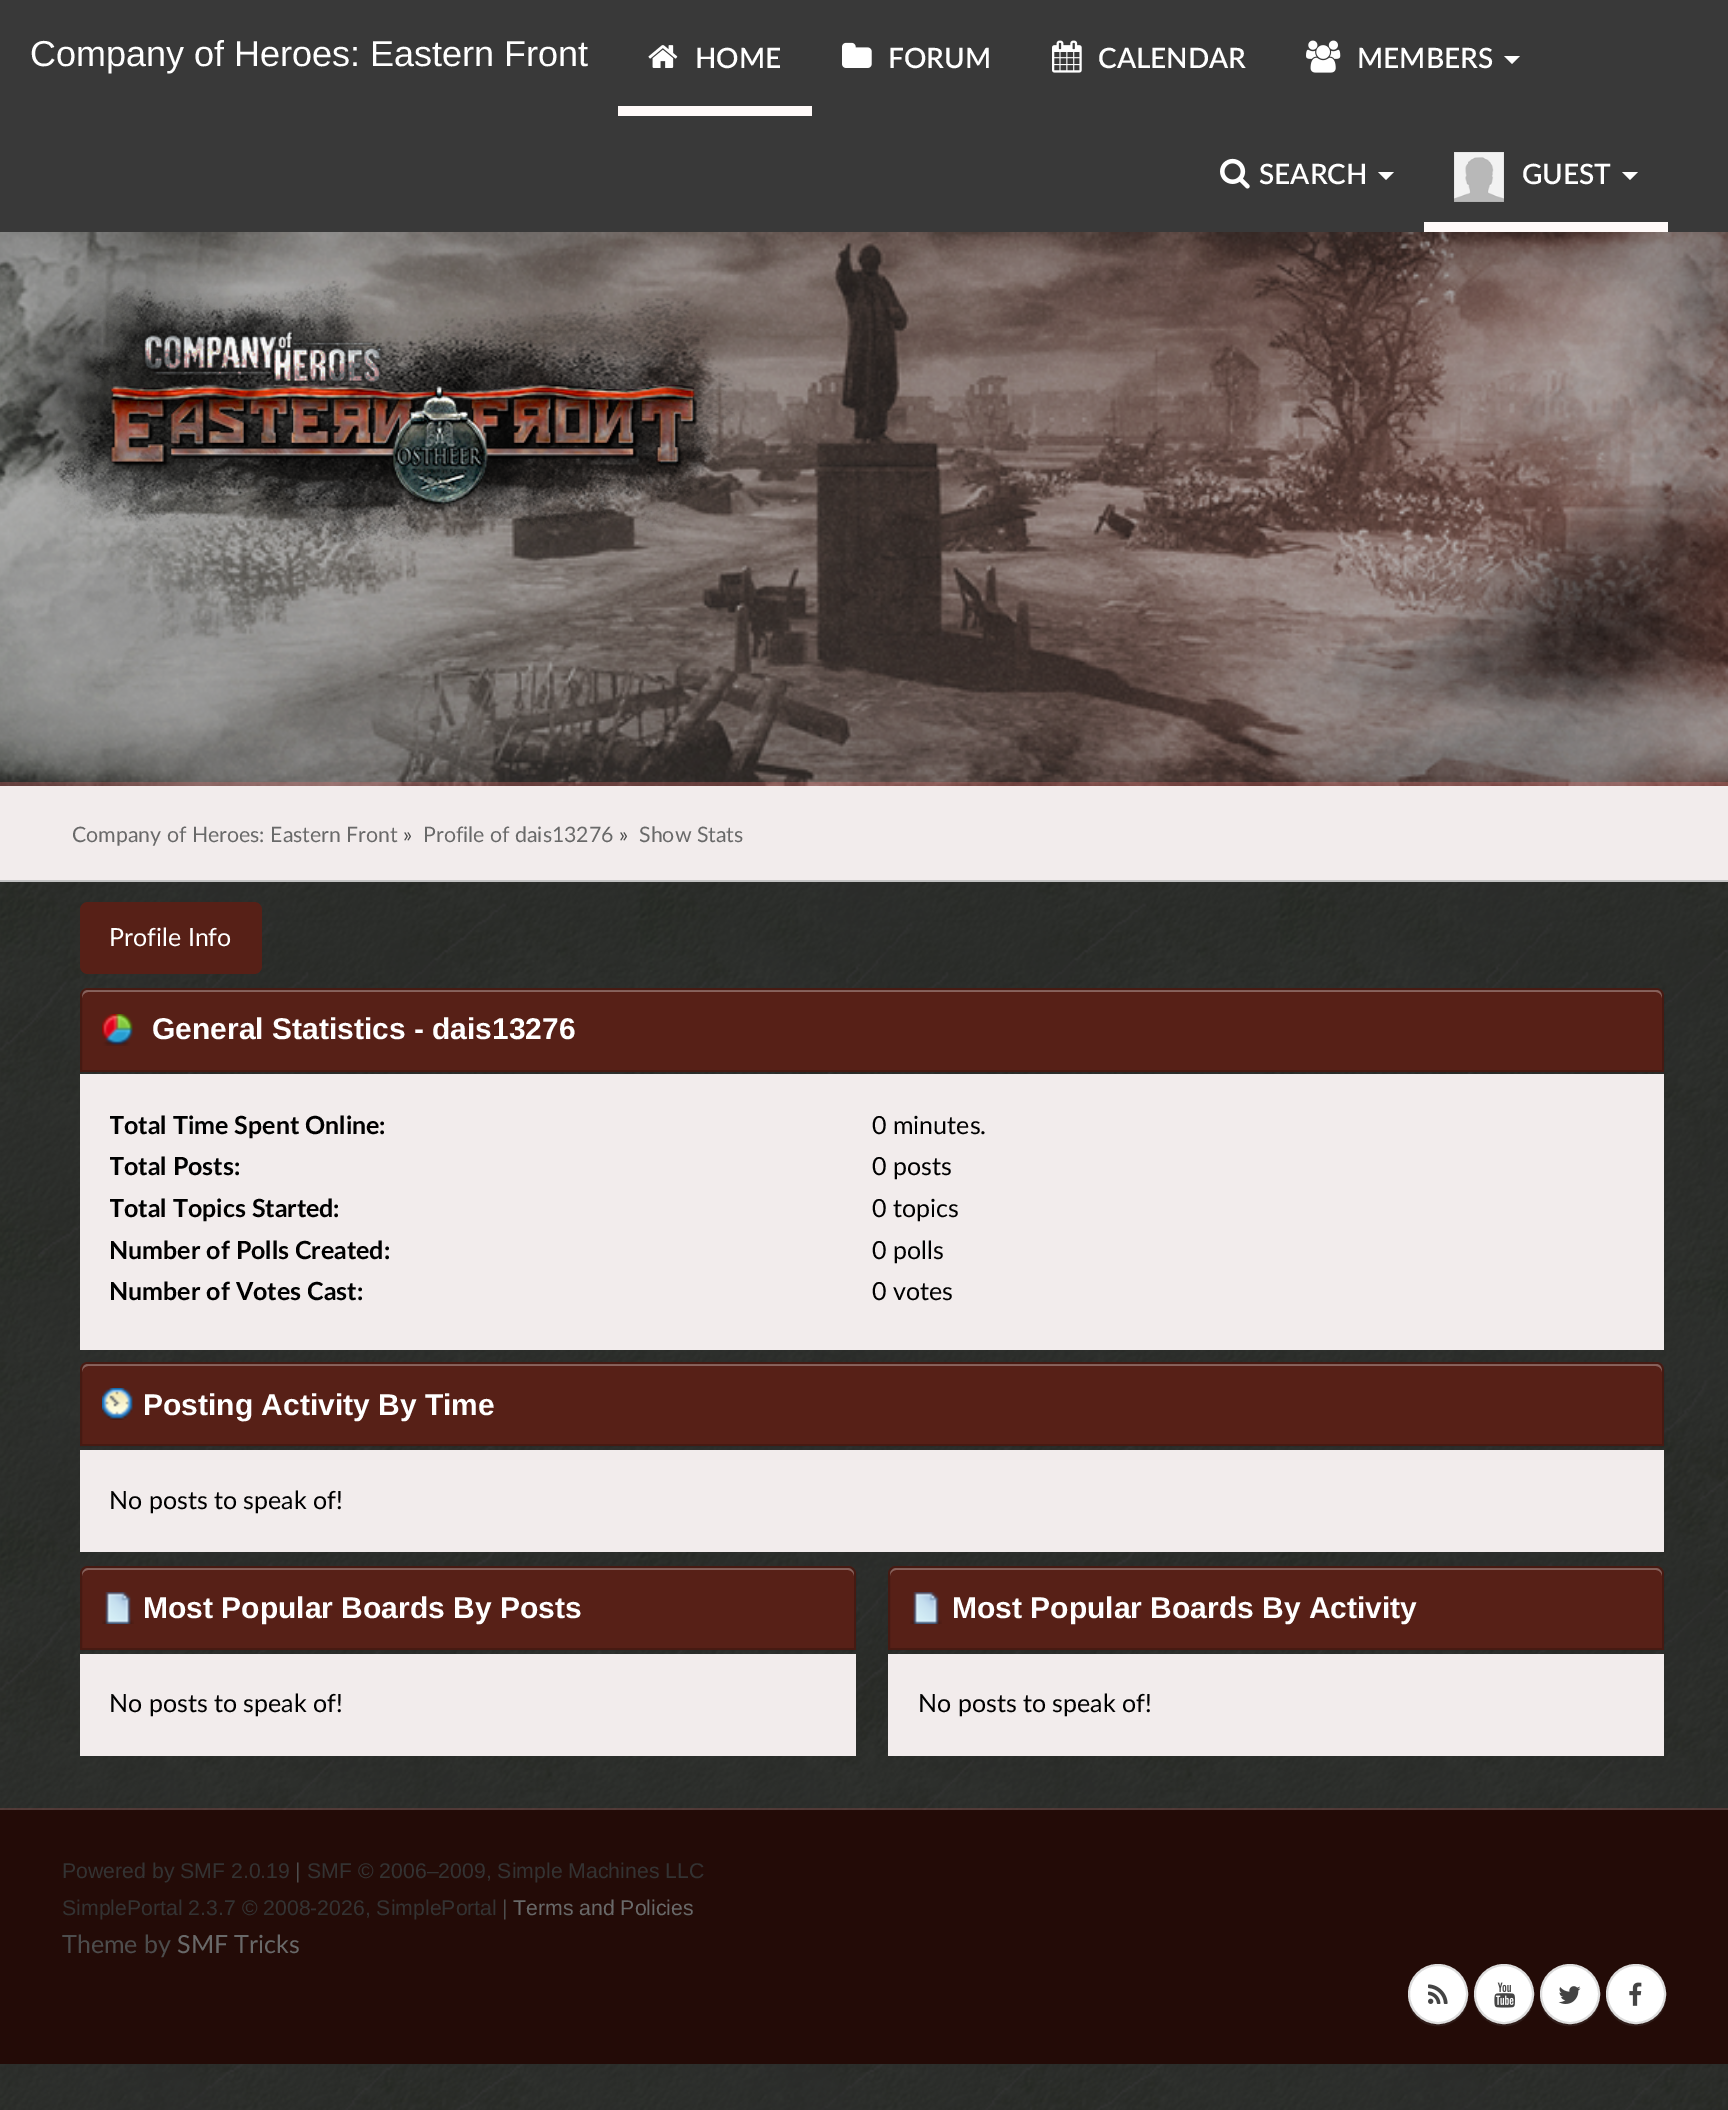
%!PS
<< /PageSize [1728 2110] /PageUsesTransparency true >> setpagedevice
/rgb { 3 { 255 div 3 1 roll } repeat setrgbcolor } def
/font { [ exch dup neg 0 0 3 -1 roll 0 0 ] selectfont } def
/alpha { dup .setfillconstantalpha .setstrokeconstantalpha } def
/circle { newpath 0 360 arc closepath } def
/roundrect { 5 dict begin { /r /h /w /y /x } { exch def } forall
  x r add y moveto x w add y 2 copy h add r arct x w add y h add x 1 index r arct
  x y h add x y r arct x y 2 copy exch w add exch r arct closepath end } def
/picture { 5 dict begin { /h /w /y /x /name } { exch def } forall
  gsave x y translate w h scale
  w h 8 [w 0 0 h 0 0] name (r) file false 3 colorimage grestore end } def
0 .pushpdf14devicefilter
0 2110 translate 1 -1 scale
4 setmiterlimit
255 255 255 rgb
0 0 1728 2110 rectfill
(img/1.rgb) 0 882 1728 1228 picture
57 57 57 rgb
0 0 1728 232 rectfill
255 250 249 rgb
618 106 194 10 rectfill
(img/2.rgb) 648 45 30 23 picture
(img/3.rgb) 842 42 30 26 picture
(img/4.rgb) 1052 40 30 33 picture
(img/5.rgb) 1306 40 35 33 picture
255 255 255 rgb
1504 56 moveto 1520 56 lineto 1512 64 lineto closepath fill
(img/6.rgb) 1220 158 30 31 picture
1378 172 moveto 1394 172 lineto 1386 180 lineto closepath fill
255 250 249 rgb
1424 222 244 10 rectfill
(img/7.rgb) 1454 152 50 50 picture
255 255 255 rgb
1622 172 moveto 1638 172 lineto 1630 180 lineto closepath fill
(img/8.rgb) 0 232 1728 554 picture
(img/9.rgb) 54 280 681 280 picture
0.3 alpha
[
  [0 782 1728 4 229 107 105]
] { aload pop rgb rectfill } forall
1 alpha
[
  [0 786 1728 94 242 236 236]
  [0 880 1728 2 194 194 194]
] { aload pop rgb rectfill } forall
87 32 23 rgb
80 902 182 72 8 roundrect fill
88 988 moveto 1656 988 lineto 1660.5 988 1664 991.5 1664 996 curveto 1664 1072 lineto 80 1072 lineto 80 996 lineto 80 991.5 83.5 988 88 988 curveto closepath fill
137 99 93 rgb
88 992 moveto 1656 992 lineto 1659 992 1662 995 1662 998 curveto 1662 994 1661 990 1656 990 curveto 88 990 lineto 83 990 82 994 82 998 curveto 82 995 85 992 88 992 curveto closepath fill
0.2 alpha
0 0 0 rgb
2 setlinewidth
88 989 moveto 1656 989 lineto 1660 989 1663 992 1663 996 curveto 1663 1071 lineto 81 1071 lineto 81 996 lineto 81 992 84 989 88 989 curveto closepath stroke
1 alpha
(img/10.rgb) 102 1014 31 32 picture
242 236 236 rgb
80 1074 1584 276 rectfill
87 32 23 rgb
88 1362 moveto 1656 1362 lineto 1660.5 1362 1664 1365.5 1664 1370 curveto 1664 1446 lineto 80 1446 lineto 80 1370 lineto 80 1365.5 83.5 1362 88 1362 curveto closepath fill
137 99 93 rgb
88 1366 moveto 1656 1366 lineto 1659 1366 1662 1369 1662 1372 curveto 1662 1368 1661 1364 1656 1364 curveto 88 1364 lineto 83 1364 82 1368 82 1372 curveto 82 1369 85 1366 88 1366 curveto closepath fill
0.2 alpha
0 0 0 rgb
88 1363 moveto 1656 1363 lineto 1660 1363 1663 1366 1663 1370 curveto 1663 1445 lineto 81 1445 lineto 81 1370 lineto 81 1366 84 1363 88 1363 curveto closepath stroke
1 alpha
(img/11.rgb) 102 1388 31 32 picture
242 236 236 rgb
80 1450 1584 102 rectfill
87 32 23 rgb
88 1566 moveto 848 1566 lineto 852.5 1566 856 1569.5 856 1574 curveto 856 1650 lineto 80 1650 lineto 80 1574 lineto 80 1569.5 83.5 1566 88 1566 curveto closepath fill
137 99 93 rgb
88 1570 moveto 848 1570 lineto 851 1570 854 1573 854 1576 curveto 854 1574 lineto 854 1571 851 1568 848 1568 curveto 88 1568 lineto 85 1568 82 1571 82 1574 curveto 82 1576 lineto 82 1573 85 1570 88 1570 curveto closepath fill
0.2 alpha
0 0 0 rgb
88 1567 moveto 848 1567 lineto 852 1567 855 1570 855 1574 curveto 855 1649 lineto 81 1649 lineto 81 1574 lineto 81 1570 84 1567 88 1567 curveto closepath stroke
1 alpha
(img/12.rgb) 102 1592 32 32 picture
242 236 236 rgb
80 1654 776 102 rectfill
87 32 23 rgb
896 1566 moveto 1656 1566 lineto 1660.5 1566 1664 1569.5 1664 1574 curveto 1664 1650 lineto 888 1650 lineto 888 1574 lineto 888 1569.5 891.5 1566 896 1566 curveto closepath fill
137 99 93 rgb
896 1570 moveto 1656 1570 lineto 1659 1570 1662 1573 1662 1576 curveto 1662 1574 lineto 1662 1571 1659 1568 1656 1568 curveto 896 1568 lineto 893 1568 890 1571 890 1574 curveto 890 1576 lineto 890 1573 893 1570 896 1570 curveto closepath fill
0.2 alpha
0 0 0 rgb
896 1567 moveto 1656 1567 lineto 1660 1567 1663 1570 1663 1574 curveto 1663 1649 lineto 889 1649 lineto 889 1574 lineto 889 1570 892 1567 896 1567 curveto closepath stroke
1 alpha
(img/12.rgb) 910 1592 32 32 picture
[
  [888 1654 776 102 242 236 236]
] { aload pop rgb rectfill } forall
0.2 alpha
[
  [0 1808 1728 2 229 107 105]
] { aload pop rgb rectfill } forall
1 alpha
[
  [0 1810 1728 254 35 11 7]
] { aload pop rgb rectfill } forall
48 29 26 rgb
1408 1995 moveto 1408 2001 1410 2008 1413 2013 curveto 1430 2038 1469 2025 1468 1995 curveto 1467 2011 1454 2024 1438 2024 curveto 1422 2024 1409 2011 1408 1995 curveto closepath fill
255 255 255 rgb
1438 1994 29 circle gsave fill grestore
221 221 221 rgb
stroke
(img/13.rgb) 1428 1984 20 20 picture
48 29 26 rgb
1474 1995 moveto 1473 2025 1512 2038 1529 2013 curveto 1532 2008 1534 2001 1534 1995 curveto 1533 2011 1520 2024 1504 2024 curveto 1488 2024 1475 2011 1474 1995 curveto closepath fill
255 255 255 rgb
1504 1994 29 circle gsave fill grestore
221 221 221 rgb
stroke
(img/14.rgb) 1494 1982 21 26 picture
48 29 26 rgb
1540 1995 moveto 1540 2001 1542 2008 1545 2013 curveto 1562 2038 1601 2025 1600 1995 curveto 1599 2011 1586 2024 1570 2024 curveto 1554 2024 1541 2011 1540 1995 curveto closepath fill
255 255 255 rgb
1570 1994 29 circle gsave fill grestore
221 221 221 rgb
stroke
(img/15.rgb) 1558 1986 23 18 picture
48 29 26 rgb
1606 1995 moveto 1606 2001 1608 2008 1611 2013 curveto 1628 2038 1667 2025 1666 1995 curveto 1665 2011 1652 2024 1636 2024 curveto 1620 2024 1607 2011 1606 1995 curveto closepath fill
255 255 255 rgb
1636 1994 29 circle gsave fill grestore
221 221 221 rgb
stroke
(img/16.rgb) 1629 1982 13 24 picture
/LiberationSans-Regular 36 font
255 255 255 rgb
30 66 moveto (Company of Heroes: Eastern Front) show
/Lato-SemiBold 28 font
[
  [(HOME) 695 68]
  [(FORUM) 888 68]
  [(CALENDAR) 1098 68]
  [(MEMBERS) 1357 68]
  [(SEARCH) 1259 184]
  [(GUEST) 1522 184]
] { aload pop moveto show } forall
/Lato-Regular 21.3 font
105 105 105 rgb
72 842 moveto (Company of Heroes: Eastern Front) show
77 77 77 rgb
403 842 moveto (») show
105 105 105 rgb
423 842 moveto (Profile of dais13276) show
77 77 77 rgb
619 842 moveto (») show
105 105 105 rgb
639 842 moveto (Show Stats) show
/Lato-Regular 25 font
255 255 255 rgb
109 946 moveto (Profile Info) show
/LiberationSans-Bold 30 font
152 1039 moveto (General Statistics - dais13276) show
gsave
110 1108 1524 208 rectclip
/Lato-Bold 25 font
0 0 0 rgb
109 1134 moveto (Total Time Spent Online:) show
grestore
/Lato-Regular 25 font
0 0 0 rgb
872 1134 moveto (0 minutes.) show
gsave
110 1108 1524 208 rectclip
/Lato-Bold 25 font
109 1175 moveto (Total Posts:) show
grestore
872 1175 moveto (0 posts) show
gsave
110 1108 1524 208 rectclip
/Lato-Bold 25 font
109 1217 moveto (Total Topics Started:) show
grestore
872 1217 moveto (0 topics) show
/Lato-Bold 25 font
109 1259 moveto (Number of Polls Created:) show
/Lato-Regular 25 font
872 1259 moveto (0 polls) show
/Lato-Bold 25 font
109 1300 moveto (Number of Votes Cast:) show
/Lato-Regular 25 font
872 1300 moveto (0 votes) show
/LiberationSans-Bold 30 font
255 255 255 rgb
143 1415 moveto (Posting Activity By Time) show
/Lato-Regular 25 font
0 0 0 rgb
109 1509 moveto (No posts to speak of!) show
/LiberationSans-Bold 30 font
255 255 255 rgb
143 1618 moveto (Most Popular Boards By Posts) show
/Lato-Regular 25 font
0 0 0 rgb
109 1712 moveto (No posts to speak of!) show
/LiberationSans-Bold 30 font
255 255 255 rgb
952 1618 moveto (Most Popular Boards By Activity) show
/Lato-Regular 25 font
0 0 0 rgb
918 1712 moveto (No posts to speak of!) show
/LiberationSans-Regular 21.25 font
51 51 51 rgb
62 1878 moveto (Powered by SMF 2.0.19) show
77 77 77 rgb
295 1878 moveto (|) show
51 51 51 rgb
307 1878 moveto (SMF © 2006–2009, Simple Machines LLC) show
62 1915 moveto (SimplePortal 2.3.7 © 2008-2026, SimplePortal) show
77 77 77 rgb
502 1915 moveto (|) show
105 105 105 rgb
513 1915 moveto (Terms and Policies) show
/Lato-Regular 25 font
77 77 77 rgb
62 1953 moveto (Theme by) show
105 105 105 rgb
177 1953 moveto (SMF Tricks) show
.poppdf14devicefilter showpage
